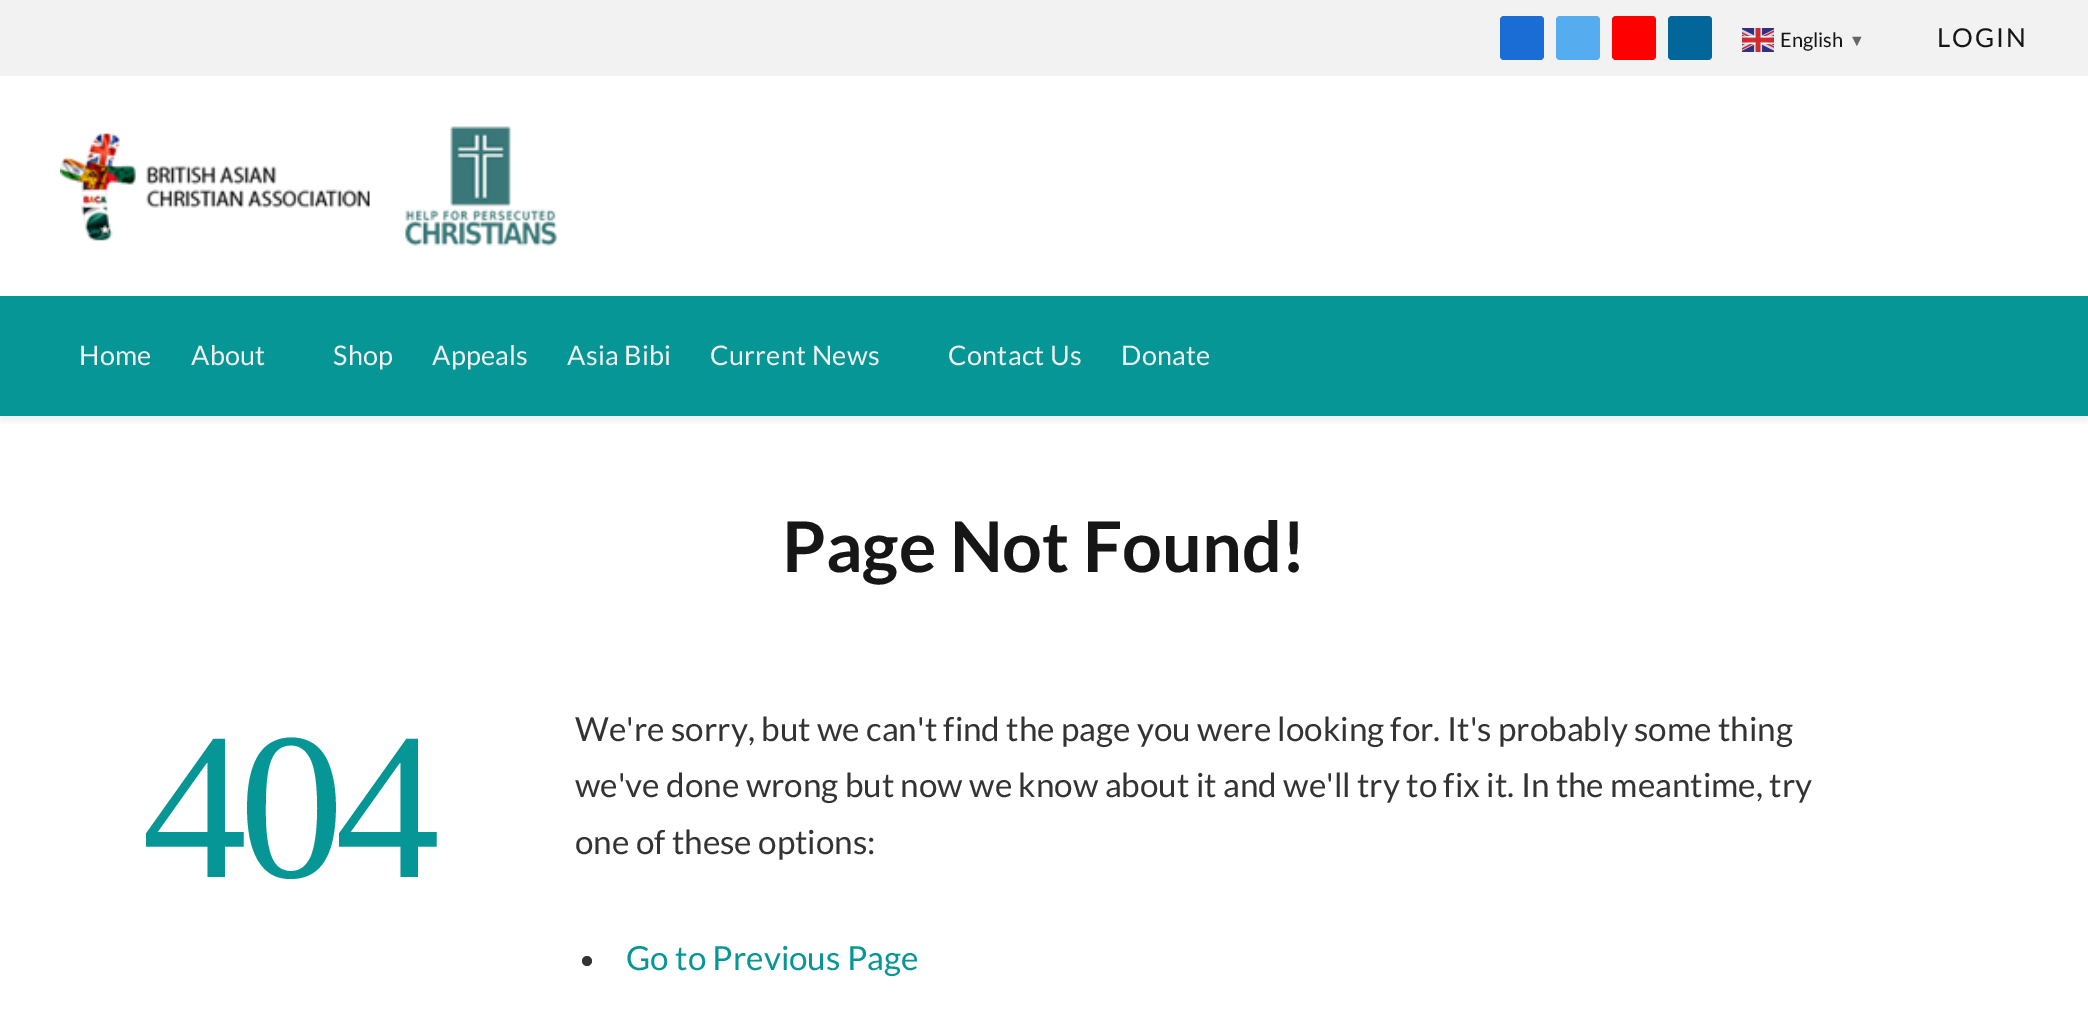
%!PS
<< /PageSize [2088 1023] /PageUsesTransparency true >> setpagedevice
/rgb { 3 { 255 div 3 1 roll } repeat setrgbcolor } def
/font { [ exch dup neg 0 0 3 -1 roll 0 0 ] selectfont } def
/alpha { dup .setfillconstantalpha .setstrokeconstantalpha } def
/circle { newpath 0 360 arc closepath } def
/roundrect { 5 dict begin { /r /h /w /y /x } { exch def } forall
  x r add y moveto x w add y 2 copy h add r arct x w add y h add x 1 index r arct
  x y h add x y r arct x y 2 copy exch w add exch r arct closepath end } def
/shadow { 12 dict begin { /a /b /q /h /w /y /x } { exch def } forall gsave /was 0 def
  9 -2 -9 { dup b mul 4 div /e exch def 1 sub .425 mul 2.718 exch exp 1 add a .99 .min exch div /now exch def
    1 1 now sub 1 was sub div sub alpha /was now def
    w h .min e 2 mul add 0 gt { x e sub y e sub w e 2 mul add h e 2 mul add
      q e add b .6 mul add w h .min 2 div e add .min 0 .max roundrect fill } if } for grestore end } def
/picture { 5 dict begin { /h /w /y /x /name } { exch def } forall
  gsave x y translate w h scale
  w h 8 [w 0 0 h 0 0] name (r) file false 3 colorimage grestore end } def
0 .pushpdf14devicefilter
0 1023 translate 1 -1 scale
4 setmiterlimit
255 255 255 rgb
0 0 2088 1023 rectfill
gsave
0 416 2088 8 rectclip
10 10 10 rgb
0 6 2088 416 0 4 0.06 shadow
grestore
242 242 242 rgb
0 0 2088 76 rectfill
26 109 212 rgb
1500 16 44 44 4 roundrect fill
85 172 239 rgb
1556 16 44 44 4 roundrect fill
255 0 0 rgb
1612 16 44 44 4 roundrect fill
2 102 154 rgb
1668 16 44 44 4 roundrect fill
(img/1.rgb) 1742 28 32 24 picture
(img/2.rgb) 60 126 498 120 picture
6 150 150 rgb
0 296 2088 120 rectfill
51 51 51 rgb
587 961 5 circle fill
/Lato-Regular 20 font
22 22 22 rgb
1780 47 moveto (English) show
/LiberationSans-Bold 16 font
102 102 102 rgb
1849 46 moveto (▼) show
/Lato-Regular 26 font
22 22 22 rgb
1937 47 moveto 2 0 (LOGIN) ashow
/Lato-Regular 27 font
240 240 240 rgb
79 365 moveto 0.25 0 (Home) ashow
191 365 moveto 0.25 0 (About) ashow
333 365 moveto 0.25 0 (Shop) ashow
432 365 moveto 0.25 0 (Appeals) ashow
567 365 moveto 0.25 0 (Asia Bibi) ashow
710 365 moveto 0.25 0 (Current News) ashow
948 365 moveto 0.25 0 (Contact Us) ashow
1121 365 moveto 0.25 0 (Donate) ashow
/Lato-Bold 70 font
22 22 22 rgb
782 572 moveto (Page Not Found!) show
/LiberationSerif-Regular 210 font
6 150 150 rgb
142 877 moveto -8.5 0 (404) ashow
/Lato-Regular 33.2 font
51 51 51 rgb
[
  [(We're sorry, but we can't find the page you were looking for. It's probably some thing) 575 741]
  [(we've done wrong but now we know about it and we'll try to fix it. In the meantime, try) 575 797]
  [(one of these options:) 575 854]
] { aload pop moveto show } forall
6 150 150 rgb
626 970 moveto (Go to Previous Page) show
.poppdf14devicefilter showpage
